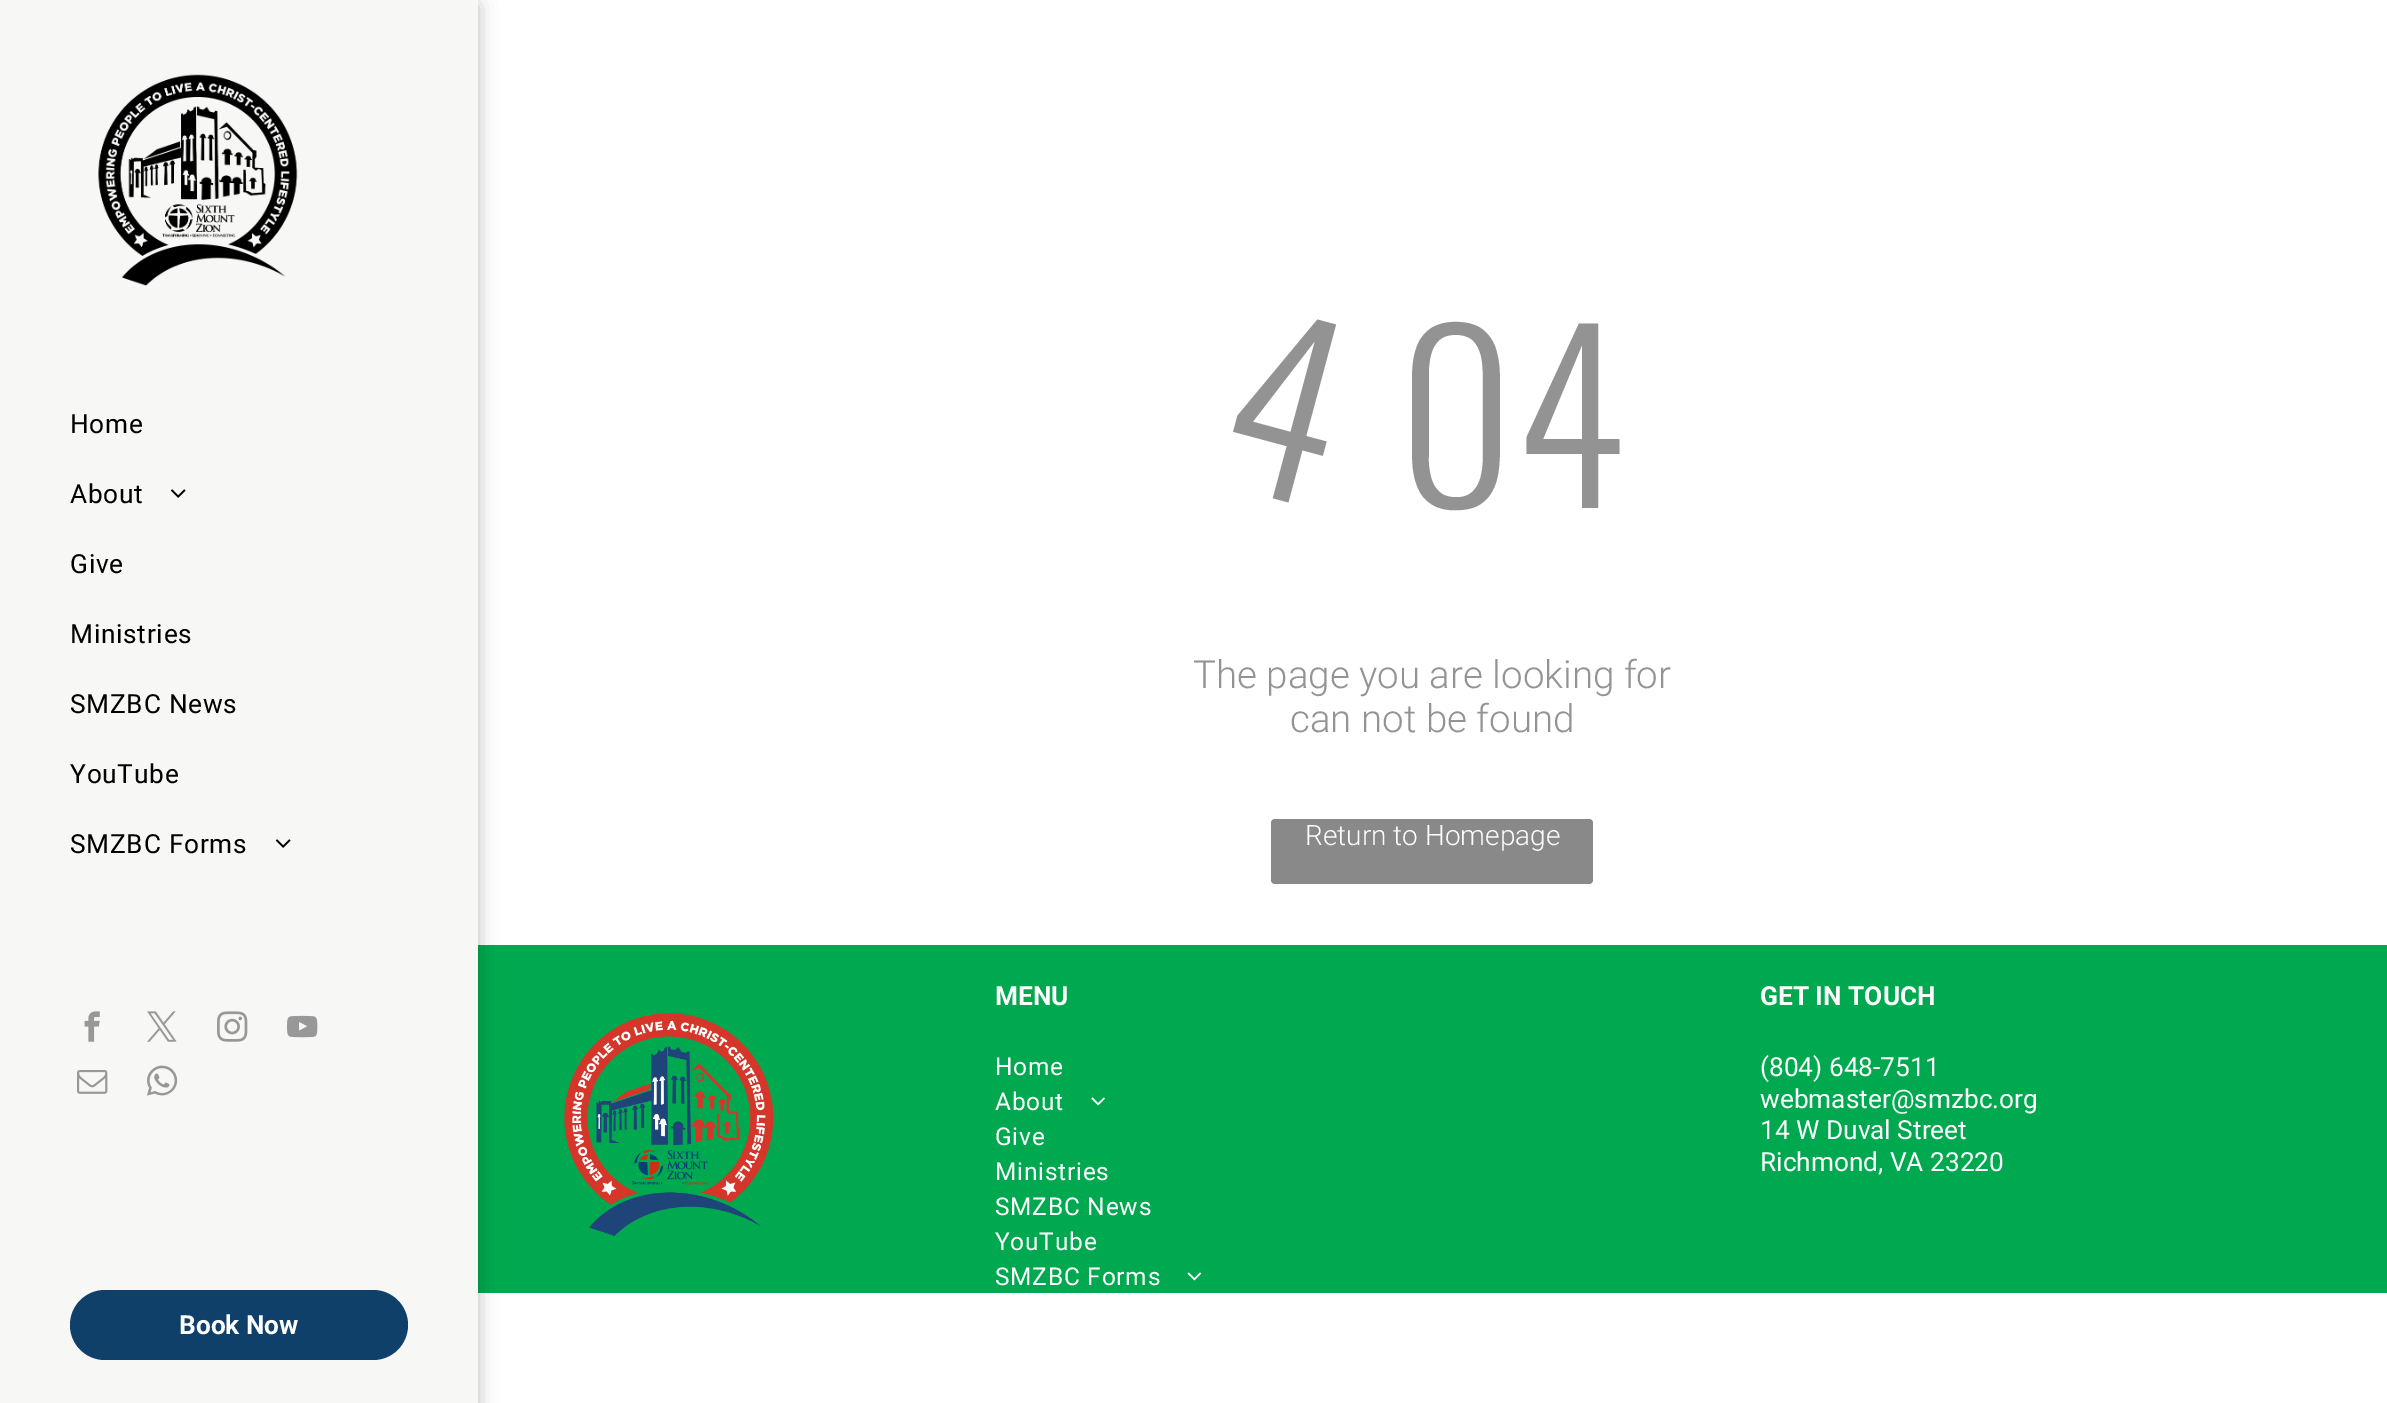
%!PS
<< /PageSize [2387 1403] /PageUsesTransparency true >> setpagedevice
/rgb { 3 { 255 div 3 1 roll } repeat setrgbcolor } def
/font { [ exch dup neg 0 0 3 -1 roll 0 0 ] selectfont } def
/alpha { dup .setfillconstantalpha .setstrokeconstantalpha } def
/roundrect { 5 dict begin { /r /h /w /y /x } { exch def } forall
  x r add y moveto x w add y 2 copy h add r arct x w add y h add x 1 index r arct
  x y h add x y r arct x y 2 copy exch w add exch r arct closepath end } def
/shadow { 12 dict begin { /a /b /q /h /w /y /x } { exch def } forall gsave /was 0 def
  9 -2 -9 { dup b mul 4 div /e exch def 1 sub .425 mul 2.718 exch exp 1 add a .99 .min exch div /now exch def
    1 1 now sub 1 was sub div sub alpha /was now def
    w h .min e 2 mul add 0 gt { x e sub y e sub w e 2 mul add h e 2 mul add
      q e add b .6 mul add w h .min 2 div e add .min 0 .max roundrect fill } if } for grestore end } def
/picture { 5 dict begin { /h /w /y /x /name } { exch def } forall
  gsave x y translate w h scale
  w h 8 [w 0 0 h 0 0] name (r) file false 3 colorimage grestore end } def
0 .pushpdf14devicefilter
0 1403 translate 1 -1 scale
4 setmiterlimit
255 255 255 rgb
0 0 2387 1403 rectfill
0 169 79 rgb
478 945 1909 348 rectfill
0 0 0 rgb
0 5 478 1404 0 9.5 0.25 shadow
247 247 245 rgb
0 0 478 1403 rectfill
(img/1.rgb) 98 74 200 212 picture
(img/2.rgb) 170 489 16 9 picture
(img/2.rgb) 275 839 16 9 picture
(img/3.rgb) 84 1011 16 31 picture
(img/4.rgb) 147 1011 30 31 picture
(img/5.rgb) 217 1011 31 31 picture
(img/6.rgb) 287 1015 31 23 picture
(img/7.rgb) 77 1070 31 24 picture
(img/8.rgb) 147 1065 31 31 picture
15 64 106 rgb
70 1290 338 70 35 roundrect fill
137 137 137 rgb
1271 819 322 65 4 roundrect fill
(img/9.rgb) 564 1013 210 223 picture
(img/10.rgb) 1091 1097 14 9 picture
(img/11.rgb) 1187 1272 15 9 picture
/Roboto-Regular 26.25 font
0 0 0 rgb
70 433 moveto 0.75 0 (Home) ashow
70 503 moveto 0.75 0 (About) ashow
70 573 moveto 0.75 0 (Give) ashow
70 643 moveto 0.75 0 (Ministries) ashow
70 713 moveto 0.75 0 (SMZBC News) ashow
70 783 moveto 0.75 0 (YouTube) ashow
70 853 moveto 0.75 0 (SMZBC Forms) ashow
/Roboto-Bold 26.25 font
255 255 255 rgb
179 1334 moveto (Book Now) show
/Oswald-Light 228 font
147 147 147 rgb
gsave 1208 481 translate 15 rotate 0 0 moveto (4) show grestore
1397 508 moveto (04) show
/Roboto-Light 38.5 font
1193 688 moveto (The page you are looking for) show
1290 732 moveto (can not be found) show
/Roboto-Light 28 font
255 255 255 rgb
1305 845 moveto (Return to Homepage) show
/Roboto-Bold 26.25 font
995 1005 moveto (MENU) show
/Roboto-Regular 24.5 font
995 1075 moveto 0.75 0 (Home) ashow
995 1110 moveto 0.75 0 (About) ashow
995 1145 moveto 0.75 0 (Give) ashow
995 1180 moveto 0.75 0 (Ministries) ashow
995 1215 moveto 0.75 0 (SMZBC News) ashow
995 1250 moveto 0.75 0 (YouTube) ashow
995 1285 moveto 0.75 0 (SMZBC Forms) ashow
/Roboto-Bold 26.25 font
1760 1005 moveto (GET IN TOUCH) show
/Roboto-Regular 26.25 font
[
  [(\(804\) 648-7511) 1760 1076]
  [(webmaster@smzbc.org) 1760 1108]
  [(14 W Duval Street) 1760 1139]
  [(Richmond, VA 23220) 1760 1171]
] { aload pop moveto show } forall
.poppdf14devicefilter showpage
